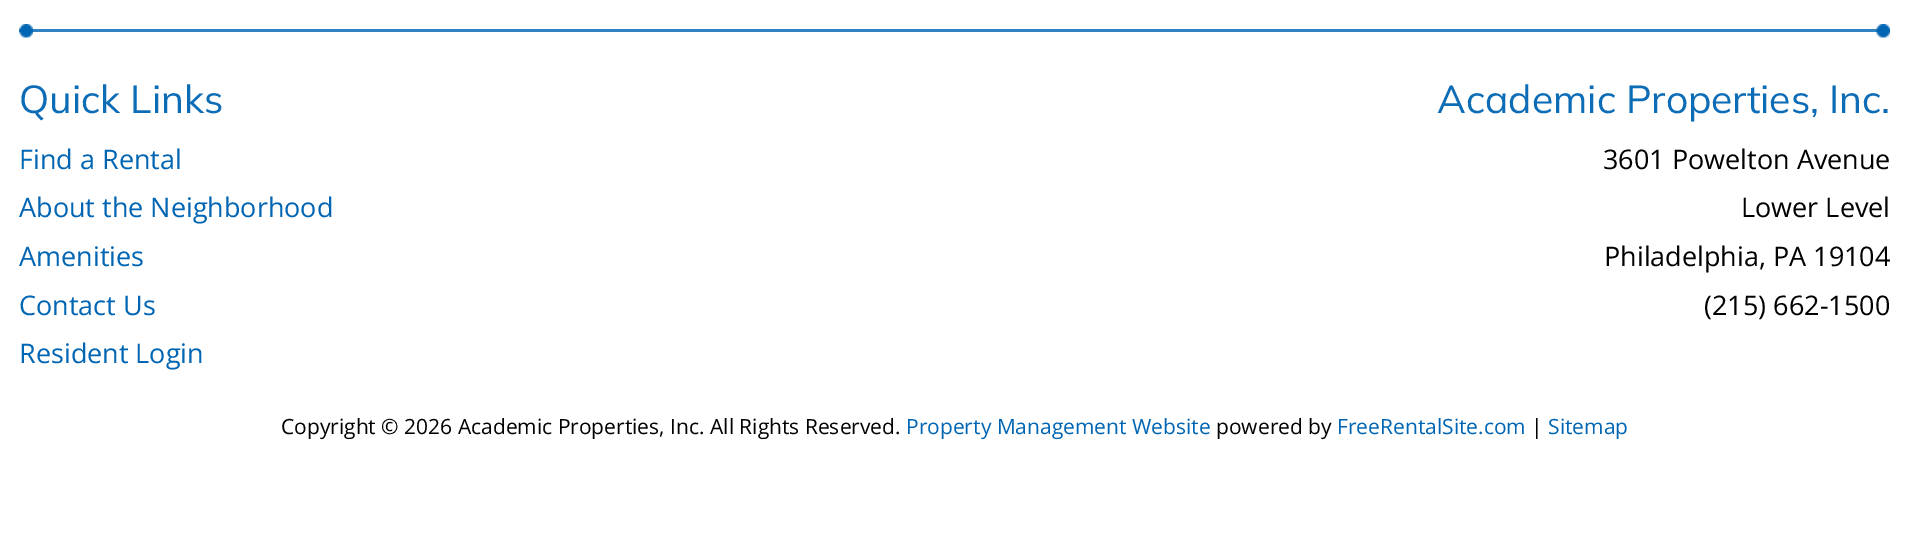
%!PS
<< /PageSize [1909 542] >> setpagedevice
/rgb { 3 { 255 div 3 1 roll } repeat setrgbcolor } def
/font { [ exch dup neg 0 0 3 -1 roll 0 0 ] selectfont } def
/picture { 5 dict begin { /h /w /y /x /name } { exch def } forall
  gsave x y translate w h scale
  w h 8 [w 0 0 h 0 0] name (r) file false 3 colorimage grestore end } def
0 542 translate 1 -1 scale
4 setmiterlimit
255 255 255 rgb
0 0 1909 542 rectfill
48 130 193 rgb
19 29 1871 3 rectfill
(img/1.rgb) 19 24 14 14 picture
(img/2.rgb) 1876 24 14 14 picture
/Mulish-Regular 39 font
13 108 182 rgb
19 113 moveto (Quick Links) show
/OpenSans-Regular 27 font
0 101 179 rgb
[
  [(Find a Rental) 19 169]
  [(About the Neighborhood) 19 217]
  [(Amenities) 19 266]
  [(Contact Us) 19 315]
  [(Resident Login) 19 363]
] { aload pop moveto show } forall
/Mulish-Regular 39 font
13 108 182 rgb
1437 113 moveto (Academic Properties, Inc.) show
/OpenSans-Regular 27 font
0 0 0 rgb
[
  [(3601 Powelton Avenue) 1603 169]
  [(Lower Level) 1741 217]
  [(Philadelphia, PA 19104) 1604 266]
  [(\(215\) 662-1500) 1704 315]
] { aload pop moveto show } forall
/OpenSans-Regular 21 font
281 434 moveto (Copyright © 2026 Academic Properties, Inc. All Rights Reserved.) show
0 101 179 rgb
906 434 moveto (Property Management Website) show
0 0 0 rgb
1216 434 moveto (powered by) show
0 101 179 rgb
1337 434 moveto (FreeRentalSite.com) show
0 0 0 rgb
1531 434 moveto (|) show
0 101 179 rgb
1548 434 moveto (Sitemap) show
showpage
